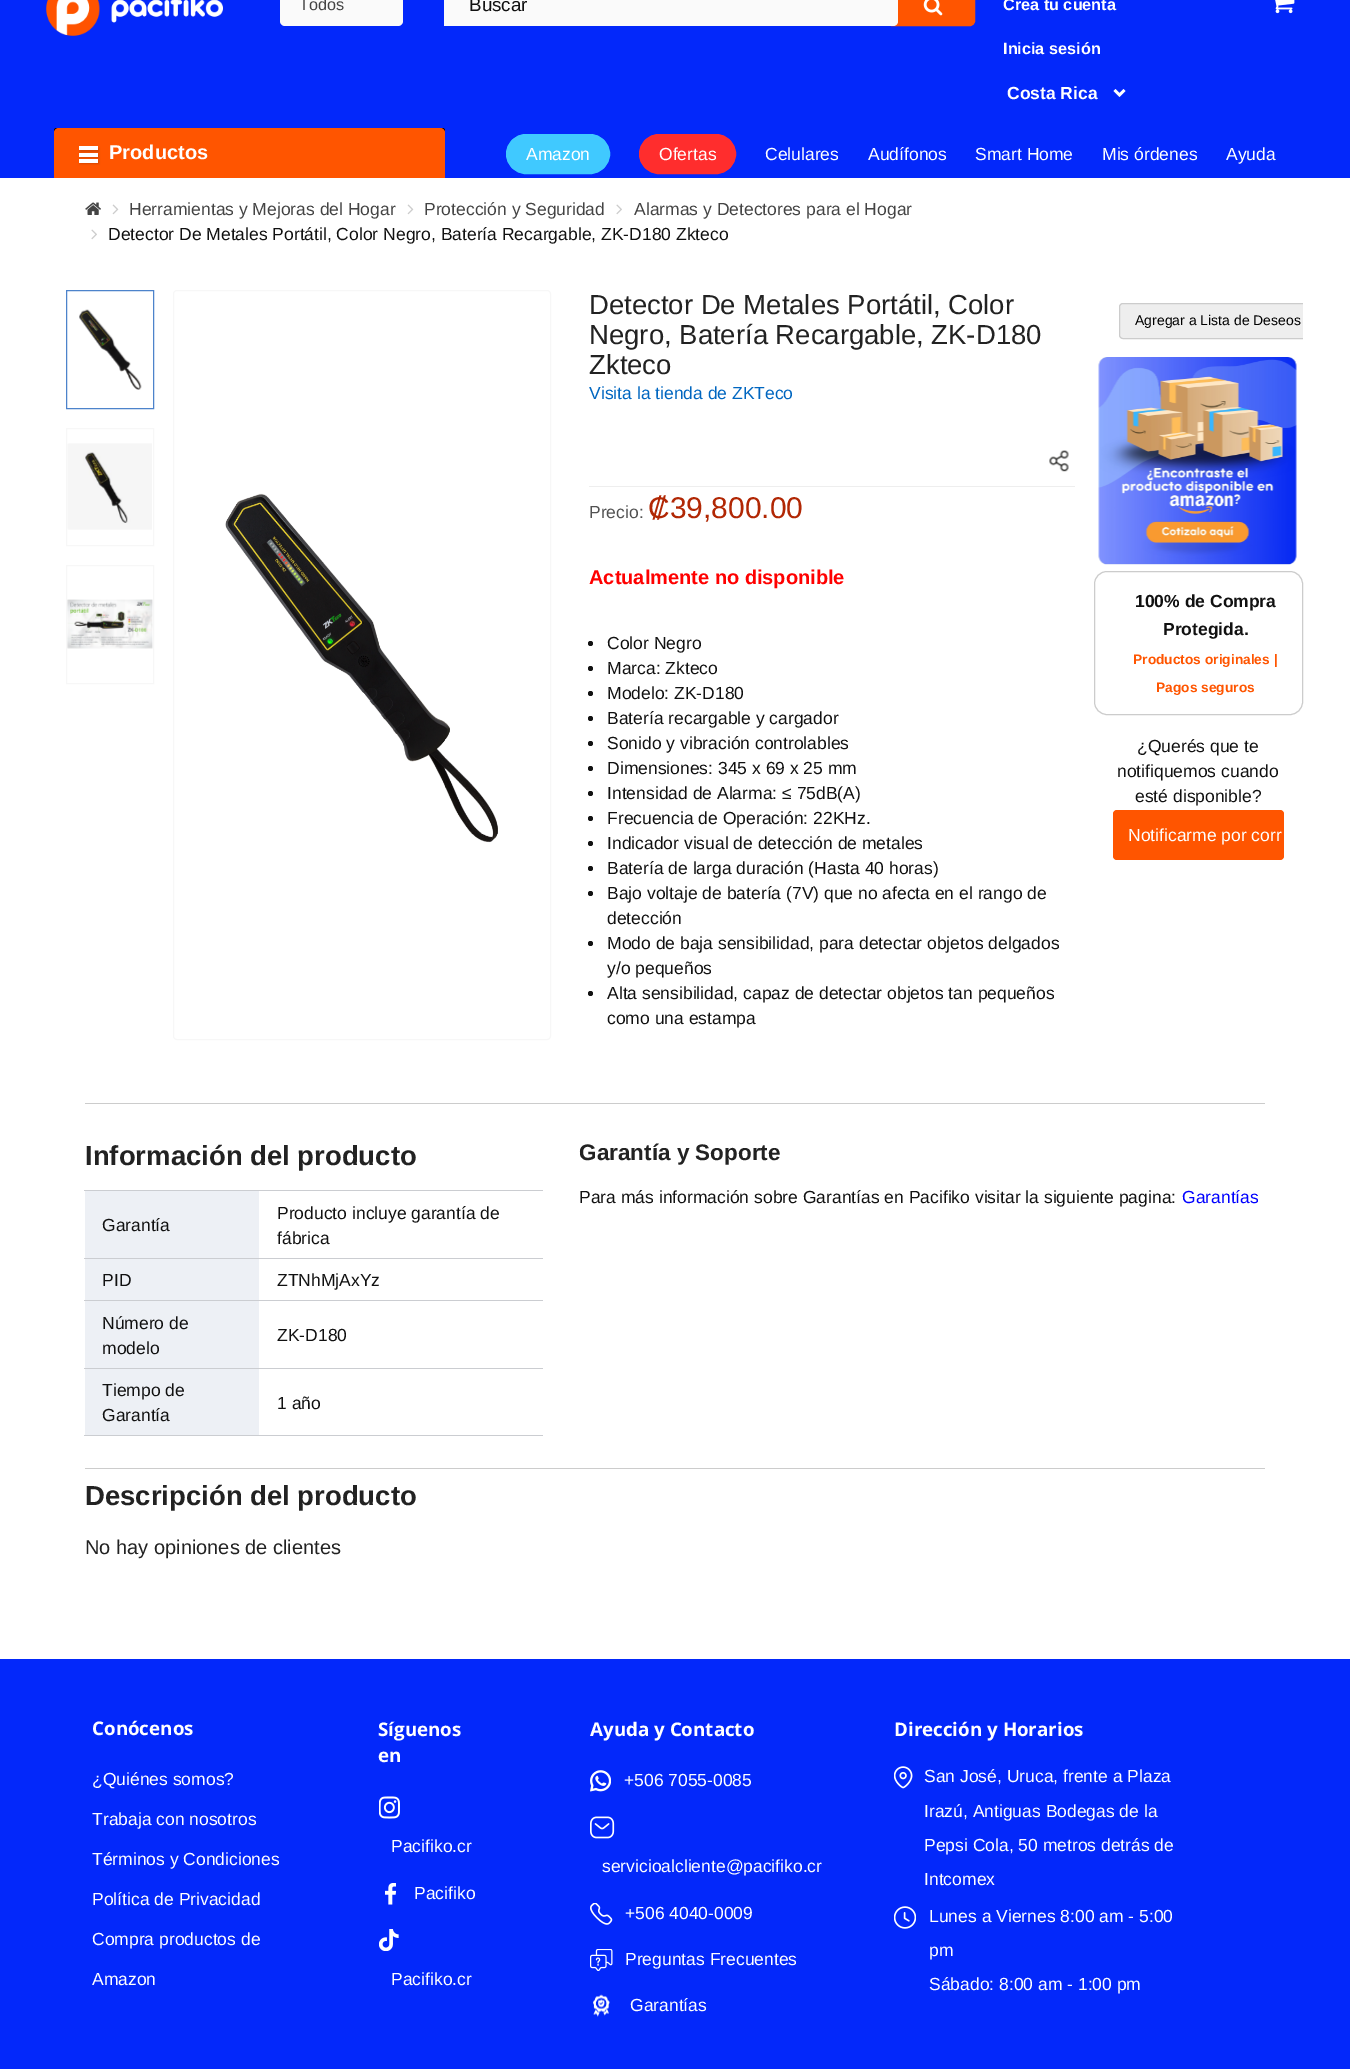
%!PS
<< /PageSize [1350 2071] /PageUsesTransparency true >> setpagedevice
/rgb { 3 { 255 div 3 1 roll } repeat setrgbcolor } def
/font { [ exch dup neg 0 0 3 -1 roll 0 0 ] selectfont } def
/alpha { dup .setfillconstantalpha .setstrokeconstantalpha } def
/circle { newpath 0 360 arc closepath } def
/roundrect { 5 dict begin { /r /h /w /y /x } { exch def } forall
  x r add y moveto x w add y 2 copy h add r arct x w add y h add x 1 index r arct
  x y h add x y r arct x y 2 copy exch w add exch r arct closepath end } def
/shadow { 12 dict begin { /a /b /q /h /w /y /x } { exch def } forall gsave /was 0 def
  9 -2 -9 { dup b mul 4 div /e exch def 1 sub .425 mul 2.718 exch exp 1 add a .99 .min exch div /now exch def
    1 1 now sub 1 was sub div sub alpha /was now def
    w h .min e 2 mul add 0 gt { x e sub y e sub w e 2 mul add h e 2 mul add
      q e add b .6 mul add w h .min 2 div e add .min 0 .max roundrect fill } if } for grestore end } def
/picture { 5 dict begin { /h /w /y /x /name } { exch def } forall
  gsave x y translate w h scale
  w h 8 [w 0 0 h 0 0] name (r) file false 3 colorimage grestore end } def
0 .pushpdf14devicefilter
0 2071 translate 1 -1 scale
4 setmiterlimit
255 255 255 rgb
0 0 1350 2071 rectfill
3 40 250 rgb
0 0 1350 178 rectfill
(img/1.rgb) 46 0 177 36 picture
250 250 250 rgb
280 -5 123 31 5 roundrect fill
255 85 0 rgb
891.5 -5.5 moveto 970 -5.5 lineto 972.5 -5.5 974.5 -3.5 974.5 -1 curveto 974.5 21 lineto 974.5 23.5 972.5 25.5 970 25.5 curveto 891.5 25.5 lineto closepath gsave fill grestore
stroke
250 250 250 rgb
444 -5 moveto 893 -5 lineto 896 -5 898 -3 898 0 curveto 898 21 lineto 898 24 896 26 893 26 curveto 444 26 lineto closepath fill
(img/2.rgb) 923 0 20 16 picture
255 255 255 rgb
2.5 setlinewidth
1114.5 90 moveto 1119.5 95 lineto 1124.5 90 lineto stroke
(img/3.rgb) 1275 0 20 14 picture
0 0 0 rgb
54 128 391 50 2.5 roundrect fill
255 85 0 rgb
59 128 moveto 440 128 lineto 443 128 445 130 445 133 curveto 445 178 lineto 54 178 lineto 54 133 lineto 54 130 56 128 59 128 curveto closepath fill
0 0 0 rgb
80 148 19 4 0 1 0.15 shadow
255 255 255 rgb
79 146 19 4 rectfill
0 0 0 rgb
80 154 19 4 0 1 0.15 shadow
255 255 255 rgb
79 153 19 4 rectfill
0 0 0 rgb
80 160 19 4 0 1 0.15 shadow
255 255 255 rgb
79 159 19 4 rectfill
64 201 255 rgb
506.5 134.5 103 39 19.5 roundrect gsave fill grestore
1 setlinewidth
stroke
255 45 45 rgb
639.5 134.5 96 39 19.5 roundrect gsave fill grestore
stroke
(img/4.rgb) 85 202 16 13 picture
(img/5.rgb) 112 204 7 11 picture
(img/5.rgb) 407 204 7 11 picture
(img/6.rgb) 616 204 6 11 picture
(img/6.rgb) 91 229 6 11 picture
77 131 203 rgb
66.5 290.5 87 118 rectstroke
(img/7.rgb) 79 309 63 81 picture
247 247 247 rgb
66.5 428.5 87 117 rectstroke
(img/8.rgb) 67 443 85 87 picture
66.5 565.5 87 118 rectstroke
(img/9.rgb) 67 599 86 50 picture
173.5 290.5 377 749 3.5 roundrect stroke
(img/10.rgb) 225 493 273 350 picture
238 238 238 rgb
589 486 486 1 rectfill
(img/11.rgb) 1049 450 20 22 picture
17 17 17 rgb
590.5 643.5 2.5 circle fill
590.5 668.5 2.5 circle fill
590.5 693.5 2.5 circle fill
590.5 718.5 2.5 circle fill
590.5 743.5 2.5 circle fill
590.5 768.5 2.5 circle fill
590.5 793.5 2.5 circle fill
590.5 818.5 2.5 circle fill
590.5 843.5 2.5 circle fill
590.5 868.5 2.5 circle fill
590.5 893.5 2.5 circle fill
590.5 943.5 2.5 circle fill
590.5 993.5 2.5 circle fill
238 238 238 rgb
1123 303 moveto 1303 303 lineto 1303 339 lineto 1123 339 lineto 1121 339 1119 337 1119 335 curveto 1119 307 lineto 1119 305 1121 303 1123 303 curveto closepath fill
gsave
1094 290 209 589 rectclip
204 204 204 rgb
1119.5 303.5 196 35 3.5 roundrect stroke
grestore
(img/12.rgb) 1098 357 199 208 picture
204 204 204 rgb
1094.5 571.5 208 143 12.5 roundrect stroke
255 85 0 rgb
1113 810 171 50 4 roundrect fill
[
  [85 1103 1180 1 204 204 204]
  [84 1190 459 1 203 205 209]
  [85 1191 174 67 237 240 245]
  [84 1258 459 1 203 205 209]
  [85 1259 174 41 237 240 245]
  [84 1300 459 1 203 205 209]
  [85 1301 174 67 237 240 245]
  [84 1368 459 1 203 205 209]
  [84 1435 459 1 203 205 209]
  [85 1369 174 66 237 240 245]
  [85 1468 1180 1 204 204 204]
  [0 1659 1350 410 3 40 250]
] { aload pop rgb rectfill } forall
(img/13.rgb) 379 1796 21 23 picture
(img/14.rgb) 385 1883 11 22 picture
(img/15.rgb) 379 1929 20 22 picture
(img/16.rgb) 590 1770 21 22 picture
(img/17.rgb) 590 1816 25 23 picture
(img/18.rgb) 590 1903 23 22 picture
(img/19.rgb) 590 1949 23 22 picture
(img/20.rgb) 593 1994 17 23 picture
(img/21.rgb) 894 1766 19 23 picture
(img/22.rgb) 894 1906 22 23 picture
/LiberationSans-Regular 16.25 font
68 68 68 rgb
299 10 moveto (Todos) show
/LiberationSans-Regular 18.75 font
17 17 17 rgb
469 11 moveto (Buscar) show
/LiberationSans-Bold 16.25 font
255 255 255 rgb
1003 10 moveto (Crea tu cuenta) show
1003 54 moveto (Inicia sesión) show
/LiberationSans-Bold 17.5 font
1007 99 moveto (Costa Rica) show
/LiberationSans-Bold 20 font
109 159 moveto (Productos) show
/LiberationSans-Regular 17.5 font
[
  [(Amazon) 526 160]
  [(Ofertas) 659 160]
  [(Celulares) 765 160]
  [(Audífonos) 868 160]
  [(Smart Home) 975 160]
  [(Mis órdenes) 1102 160]
  [(Ayuda) 1226 160]
] { aload pop moveto show } forall
68 68 68 rgb
[
  [(Herramientas y Mejoras del Hogar) 129 215]
  [(Protección y Seguridad) 424 215]
  [(Alarmas y Detectores para el Hogar) 634 215]
] { aload pop moveto show } forall
17 17 17 rgb
108 240 moveto (Detector De Metales Portátil, Color Negro, Batería Recargable, ZK-D180 Zkteco) show
/LiberationSans-Regular 27.5 font
34 34 34 rgb
[
  [(Detector De Metales Portátil, Color) 589 314]
  [(Negro, Batería Recargable, ZK-D180) 589 344]
  [(Zkteco) 589 374]
] { aload pop moveto show } forall
/LiberationSans-Regular 17.5 font
0 102 192 rgb
589 399 moveto (Visita la tienda de ZKTeco) show
82 82 82 rgb
589 518 moveto (Precio:) show
/LiberationSans-Regular 30 font
177 39 4 rgb
648 518 moveto (₡39,800.00) show
/LiberationSans-Bold 20 font
255 0 0 rgb
589 584 moveto (Actualmente no disponible) show
/LiberationSans-Regular 17.5 font
17 17 17 rgb
[
  [(Color Negro) 607 649]
  [(Marca: Zkteco) 607 674]
  [(Modelo: ZK-D180) 607 699]
  [(Batería recargable y cargador) 607 724]
  [(Sonido y vibración controlables) 607 749]
  [(Dimensiones: 345 x 69 x 25 mm) 607 774]
  [(Intensidad de Alarma: ≤ 75dB\(A\)) 607 799]
  [(Frecuencia de Operación: 22KHz.) 607 824]
  [(Indicador visual de detección de metales) 607 849]
  [(Batería de larga duración \(Hasta 40 horas\)) 607 874]
  [(Bajo voltaje de batería \(7V\) que no afecta en el rango de) 607 899]
  [(detección) 607 924]
  [(Modo de baja sensibilidad, para detectar objetos delgados) 607 949]
  [(y/o pequeños) 607 974]
  [(Alta sensibilidad, capaz de detectar objetos tan pequeños) 607 999]
  [(como una estampa) 607 1024]
] { aload pop moveto show } forall
/LiberationSans-Regular 14 font
0 0 0 rgb
1135 325 moveto (Agregar a Lista de Deseos) show
/LiberationSans-Bold 17.5 font
17 17 17 rgb
1135 607 moveto (100% de Compra) show
1163 635 moveto (Protegida.) show
/LiberationSans-Bold 13.75 font
255 85 0 rgb
1133 664 moveto (Productos originales |) show
1156 692 moveto (Pagos seguros) show
/LiberationSans-Regular 17.5 font
17 17 17 rgb
[
  [(¿Querés que te) 1137 752]
  [(notifiquemos cuando) 1117 777]
  [(esté disponible?) 1135 802]
] { aload pop moveto show } forall
255 255 255 rgb
1128 841 moveto (Notificarme por corr) show
/LiberationSans-Bold 27.5 font
34 34 34 rgb
85 1165 moveto (Información del producto) show
/LiberationSans-Regular 17.5 font
17 17 17 rgb
[
  [(Garantía) 102 1231]
  [(Producto incluye garantía de) 277 1219]
  [(fábrica) 277 1244]
  [(PID) 102 1286]
  [(ZTNhMjAxYz) 277 1286]
  [(Número de) 102 1329]
  [(modelo) 102 1354]
  [(ZK-D180) 277 1341]
  [(Tiempo de) 102 1396]
  [(Garantía) 102 1421]
  [(1 año) 277 1409]
] { aload pop moveto show } forall
/LiberationSans-Bold 22.5 font
34 34 34 rgb
579 1160 moveto (Garantía y Soporte) show
/LiberationSans-Regular 17.5 font
17 17 17 rgb
579 1203 moveto (Para más información sobre Garantías en Pacifiko visitar la siguiente pagina:) show
0 0 255 rgb
1182 1203 moveto (Garantías) show
/LiberationSans-Bold 27.5 font
34 34 34 rgb
85 1505 moveto (Descripción del producto) show
/LiberationSans-Regular 20 font
85 1554 moveto (No hay opiniones de clientes) show
/OpenSans-Bold 18.75 font
255 255 255 rgb
92 1735 moveto (Conócenos) show
/LiberationSans-Regular 17.5 font
[
  [(¿Quiénes somos?) 92 1785]
  [(Trabaja con nosotros) 92 1825]
  [(Términos y Condiciones) 92 1865]
  [(Política de Privacidad) 92 1905]
  [(Compra productos de) 92 1945]
  [(Amazon) 92 1985]
] { aload pop moveto show } forall
/OpenSans-Bold 18.75 font
378 1736 moveto (Síguenos) show
378 1762 moveto (en) show
/LiberationSans-Regular 17.5 font
[
  [(Pacifiko.cr) 391 1852]
  [(Pacifiko) 414 1899]
  [(Pacifiko.cr) 391 1985]
] { aload pop moveto show } forall
/OpenSans-Bold 18.75 font
590 1736 moveto (Ayuda y Contacto) show
/LiberationSans-Regular 17.5 font
[
  [(+506 7055-0085) 624 1786]
  [(servicioalcliente@pacifiko.cr) 602 1872]
  [(+506 4040-0009) 625 1919]
  [(Preguntas Frecuentes) 625 1965]
  [(Garantías) 630 2011]
] { aload pop moveto show } forall
/OpenSans-Bold 18.75 font
894 1736 moveto (Dirección y Horarios) show
/LiberationSans-Regular 17.5 font
[
  [(San José, Uruca, frente a Plaza) 924 1782]
  [(Irazú, Antiguas Bodegas de la) 924 1817]
  [(Pepsi Cola, 50 metros detrás de) 924 1851]
  [(Intcomex) 924 1885]
  [(Lunes a Viernes 8:00 am - 5:00) 929 1922]
  [(pm) 929 1956]
  [(Sábado: 8:00 am - 1:00 pm) 929 1990]
] { aload pop moveto show } forall
.poppdf14devicefilter showpage
